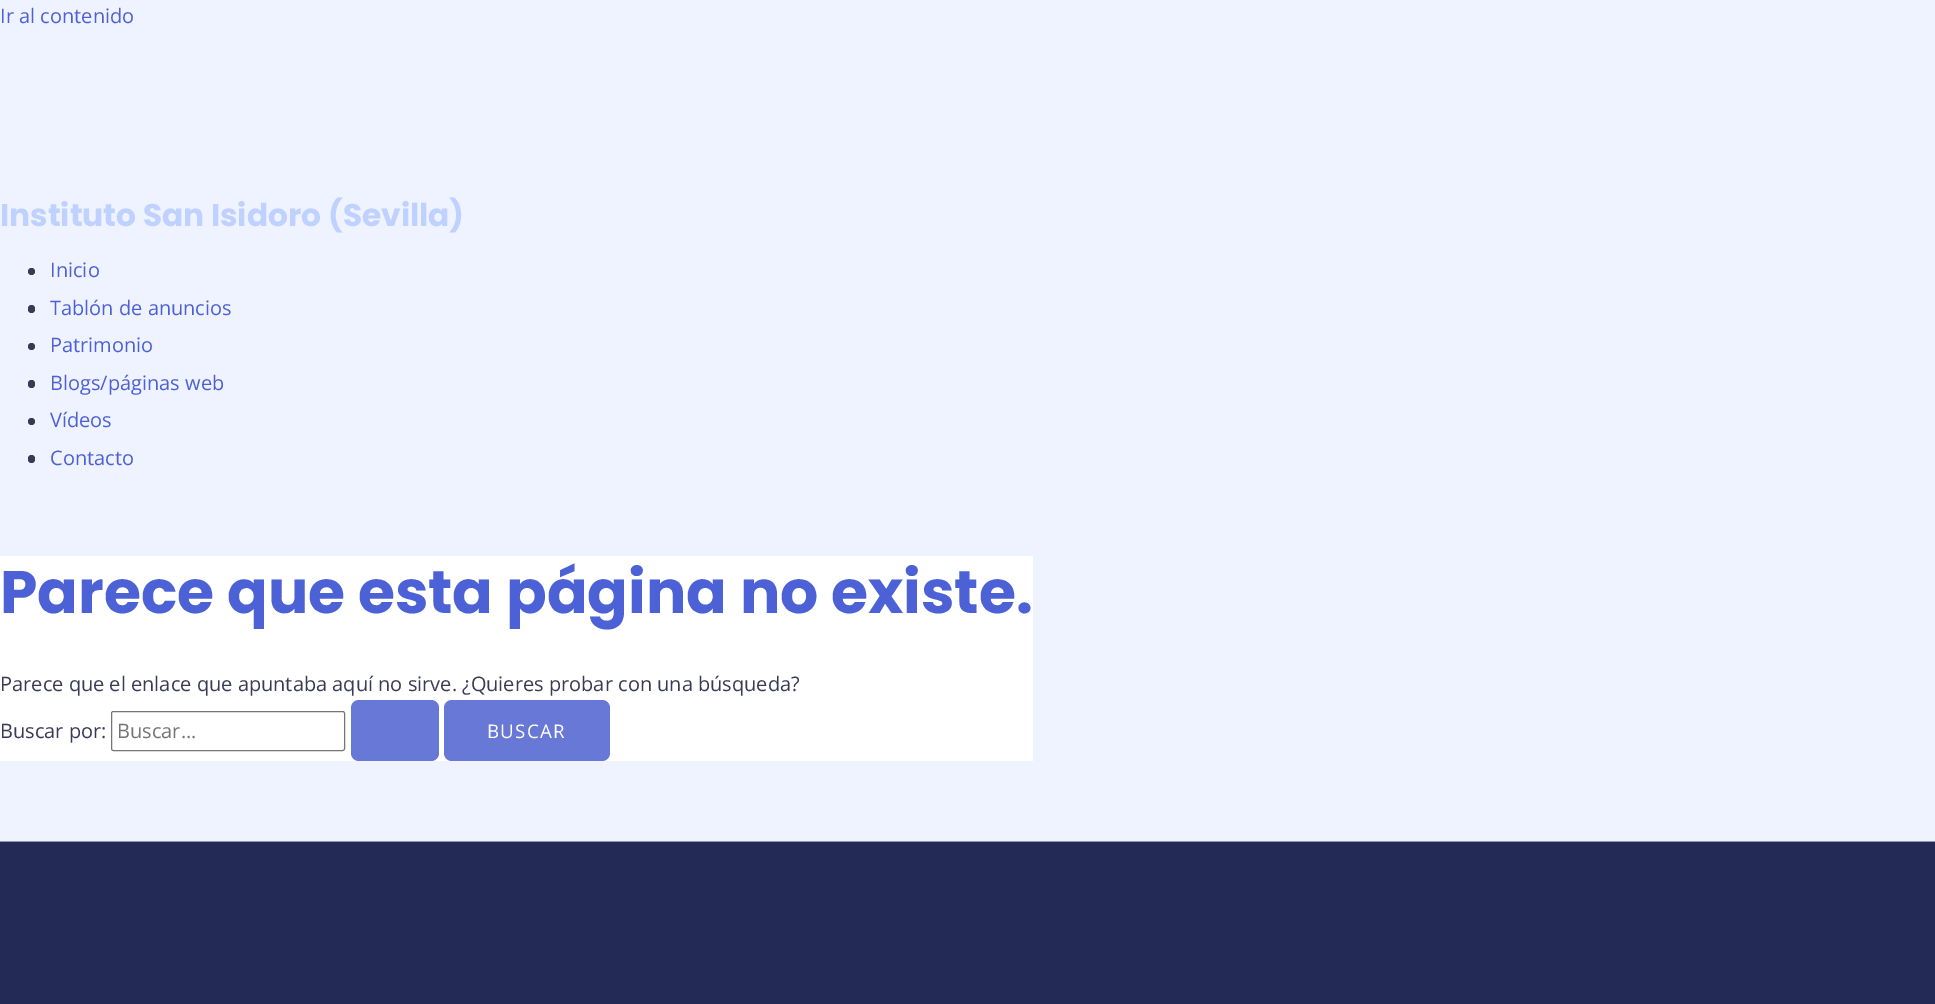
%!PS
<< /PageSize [1935 1004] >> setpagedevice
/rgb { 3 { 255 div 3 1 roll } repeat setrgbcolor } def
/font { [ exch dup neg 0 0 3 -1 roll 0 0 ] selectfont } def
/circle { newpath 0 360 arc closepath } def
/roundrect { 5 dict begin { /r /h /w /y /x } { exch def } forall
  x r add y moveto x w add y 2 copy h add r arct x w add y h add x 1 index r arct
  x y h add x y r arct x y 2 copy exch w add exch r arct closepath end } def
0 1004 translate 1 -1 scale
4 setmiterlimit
239 242 255 rgb
0 0 1935 1004 rectfill
57 58 86 rgb
31.5 271.5 3.5 circle fill
28 305 7 8 3.5 roundrect fill
31.5 346.5 3.5 circle fill
28 380 7 8 3.5 roundrect fill
31.5 421.5 3.5 circle fill
28 455 7 8 3.5 roundrect fill
255 255 255 rgb
0 556 1033 205 rectfill
118 118 118 rgb
111.5 711.5 233 39 2 roundrect stroke
104 120 214 rgb
351 700 88 61 8 roundrect fill
444 700 166 61 8 roundrect fill
36 42 86 rgb
0 842 1935 162 rectfill
147 149 168 rgb
0 841 1935 1 rectfill
/OpenSans-Regular 20 font
77 97 214 rgb
0 23 moveto (Ir al contenido) show
/Poppins-Bold 31.25 font
191 209 255 rgb
0 226 moveto (Instituto San Isidoro \(Sevilla\)) show
/OpenSans-Regular 20 font
77 97 214 rgb
[
  [(Inicio) 50 277]
  [(Tablón de anuncios) 50 315]
  [(Patrimonio) 50 352]
  [(Blogs/páginas web) 50 390]
  [(Vídeos) 50 427]
  [(Contacto) 50 465]
] { aload pop moveto show } forall
/Poppins-Bold 60 font
0 613 moveto (Parece que esta página no existe.) show
/OpenSans-Regular 20 font
57 58 86 rgb
0 691 moveto (Parece que el enlace que apuntaba aquí no sirve. ¿Quieres probar con una búsqueda?) show
0 738 moveto (Buscar por:) show
117 117 117 rgb
117 738 moveto (Buscar...) show
/OpenSans-Regular 18.75 font
255 255 255 rgb
487 738 moveto 1.25 0 (BUSCAR) ashow
showpage
